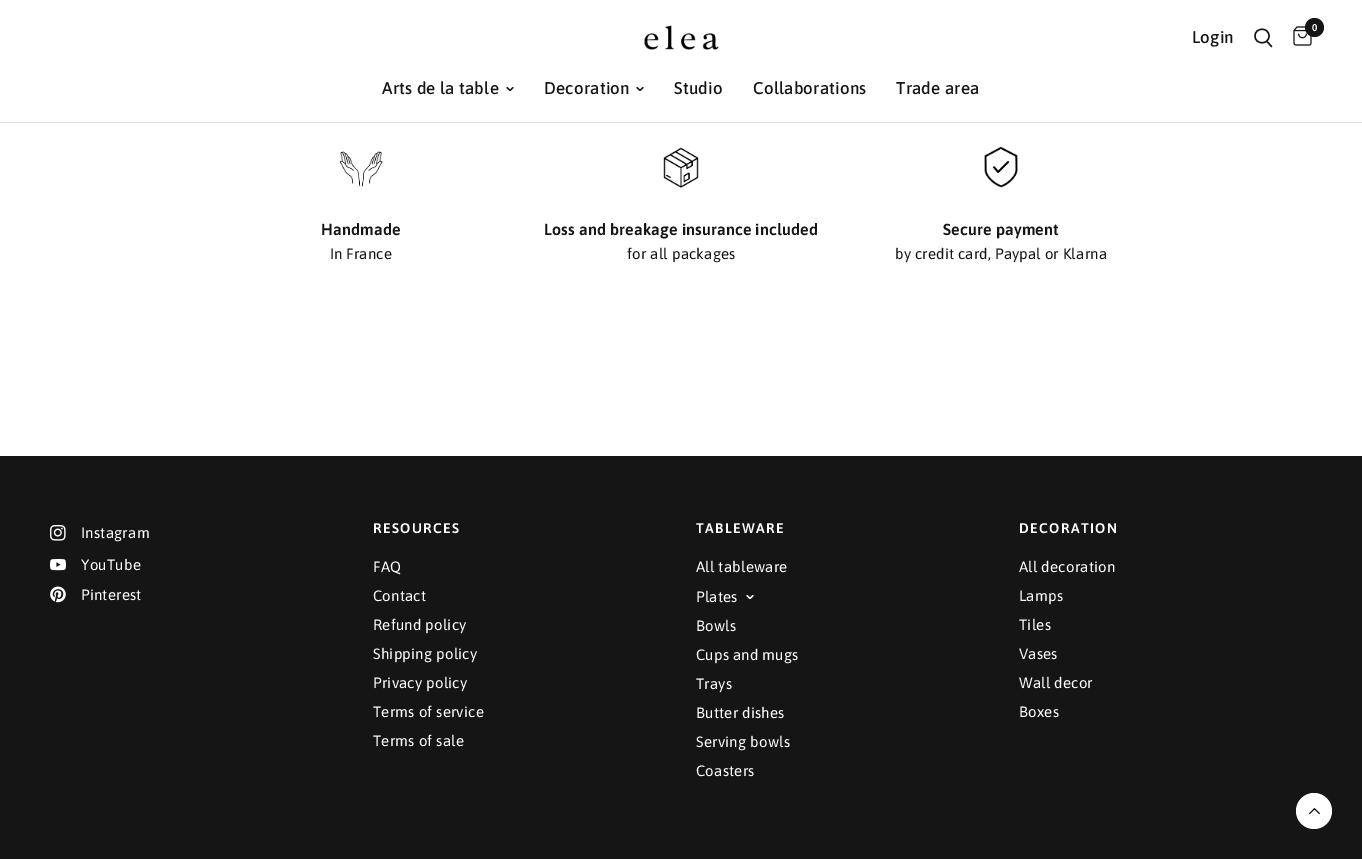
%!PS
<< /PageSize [1362 859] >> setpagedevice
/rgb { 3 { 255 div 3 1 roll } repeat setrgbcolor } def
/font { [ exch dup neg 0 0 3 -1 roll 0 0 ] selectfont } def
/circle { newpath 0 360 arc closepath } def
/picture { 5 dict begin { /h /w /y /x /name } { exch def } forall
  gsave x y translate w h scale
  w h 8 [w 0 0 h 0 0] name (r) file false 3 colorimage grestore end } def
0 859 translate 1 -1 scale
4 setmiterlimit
255 255 255 rgb
0 0 1362 859 rectfill
226 226 226 rgb
0 122 1362 1 rectfill
(img/1.rgb) 644 25 75 25 picture
21 21 21 rgb
1.4 setlinewidth
1 setlinecap
1 setlinejoin
1267 41.5 moveto 1271.5 46.5 lineto 1269 36 moveto 1269 45 1255 45 1255 36 curveto 1255 27 1269 27 1269 36 curveto closepath stroke
(img/2.rgb) 1293 26 19 20 picture
1314.5 27.5 9.5 circle fill
1.1 setlinewidth
513 87.5 moveto 510 90.5 lineto 507 87.5 lineto stroke
643 87.5 moveto 640 90.5 lineto 637 87.5 lineto stroke
(img/3.rgb) 339 151 44 36 picture
(img/4.rgb) 663 147 36 41 picture
(img/5.rgb) 984 146 34 42 picture
0 456 1362 403 rectfill
(img/6.rgb) 50 525 16 16 picture
(img/7.rgb) 50 559 16 12 picture
(img/8.rgb) 50 586 16 17 picture
255 255 255 rgb
753 595.5 moveto 750 598.5 lineto 747 595.5 lineto stroke
1314 811 18 circle fill
(img/9.rgb) 1309 808 11 7 picture
/Asap-Medium 17 font
21 21 21 rgb
1192 43 moveto 0.2 0 (Login) ashow
/Asap-SemiBold 10 font
255 255 255 rgb
1312 31 moveto 0.2 0 (0) ashow
/Asap-Medium 17 font
21 21 21 rgb
382 94 moveto 0.2 0 (Arts de la table) ashow
544 94 moveto 0.2 0 (Decoration) ashow
674 94 moveto 0.2 0 (Studio) ashow
753 94 moveto 0.2 0 (Collaborations) ashow
896 94 moveto 0.2 0 (Trade area) ashow
/Asap-SemiBold 16 font
321 235 moveto 0.15 0 (Handmade) ashow
/Asap-Regular 15 font
330 259 moveto -1 0 32 0.2 0 (In France) awidthshow
/Asap-SemiBold 16 font
544 235 moveto 0.15 0 (Loss and breakage insurance included) ashow
/Asap-Regular 15 font
627 259 moveto 0.2 0 (for all packages) ashow
/Asap-SemiBold 16 font
943 235 moveto 0.15 0 (Secure payment) ashow
/Asap-Regular 15 font
895 259 moveto -0.25 0 32 0.2 0 (by credit card, Paypal or Klarna) awidthshow
255 255 255 rgb
81 538 moveto 0.2 0 (Instagram) ashow
81 570 moveto 0.2 0 (YouTube) ashow
81 600 moveto 0.2 0 (Pinterest) ashow
/Asap-SemiBold 14 font
373 533 moveto 1.4 0 (RESOURCES) ashow
/Asap-Regular 15 font
373 572 moveto 0.2 0 (FAQ) ashow
373 601 moveto 0.2 0 (Contact) ashow
373 630 moveto 0.2 0 (Refund policy) ashow
373 659 moveto 0.2 0 (Shipping policy) ashow
373 688 moveto 0.2 0 (Privacy policy) ashow
373 717 moveto 0.2 0 (Terms of service) ashow
373 746 moveto 0.2 0 (Terms of sale) ashow
/Asap-SemiBold 14 font
696 533 moveto 1.4 0 (TABLEWARE) ashow
/Asap-Regular 15 font
696 572 moveto 0.2 0 (All tableware) ashow
696 602 moveto 0.2 0 (Plates) ashow
696 631 moveto 0.2 0 (Bowls) ashow
696 660 moveto 0.2 0 (Cups and mugs) ashow
696 689 moveto 0.2 0 (Trays) ashow
696 718 moveto 0.2 0 (Butter dishes) ashow
696 747 moveto 0.2 0 (Serving bowls) ashow
696 776 moveto 0.2 0 (Coasters) ashow
/Asap-SemiBold 14 font
1019 533 moveto 1.4 0 (DECORATION) ashow
/Asap-Regular 15 font
1019 572 moveto 0.2 0 (All decoration) ashow
1019 601 moveto 0.2 0 (Lamps) ashow
1019 630 moveto 0.2 0 (Tiles) ashow
1019 659 moveto 0.2 0 (Vases) ashow
1019 688 moveto 0.2 0 (Wall decor) ashow
1019 717 moveto 0.2 0 (Boxes) ashow
showpage
